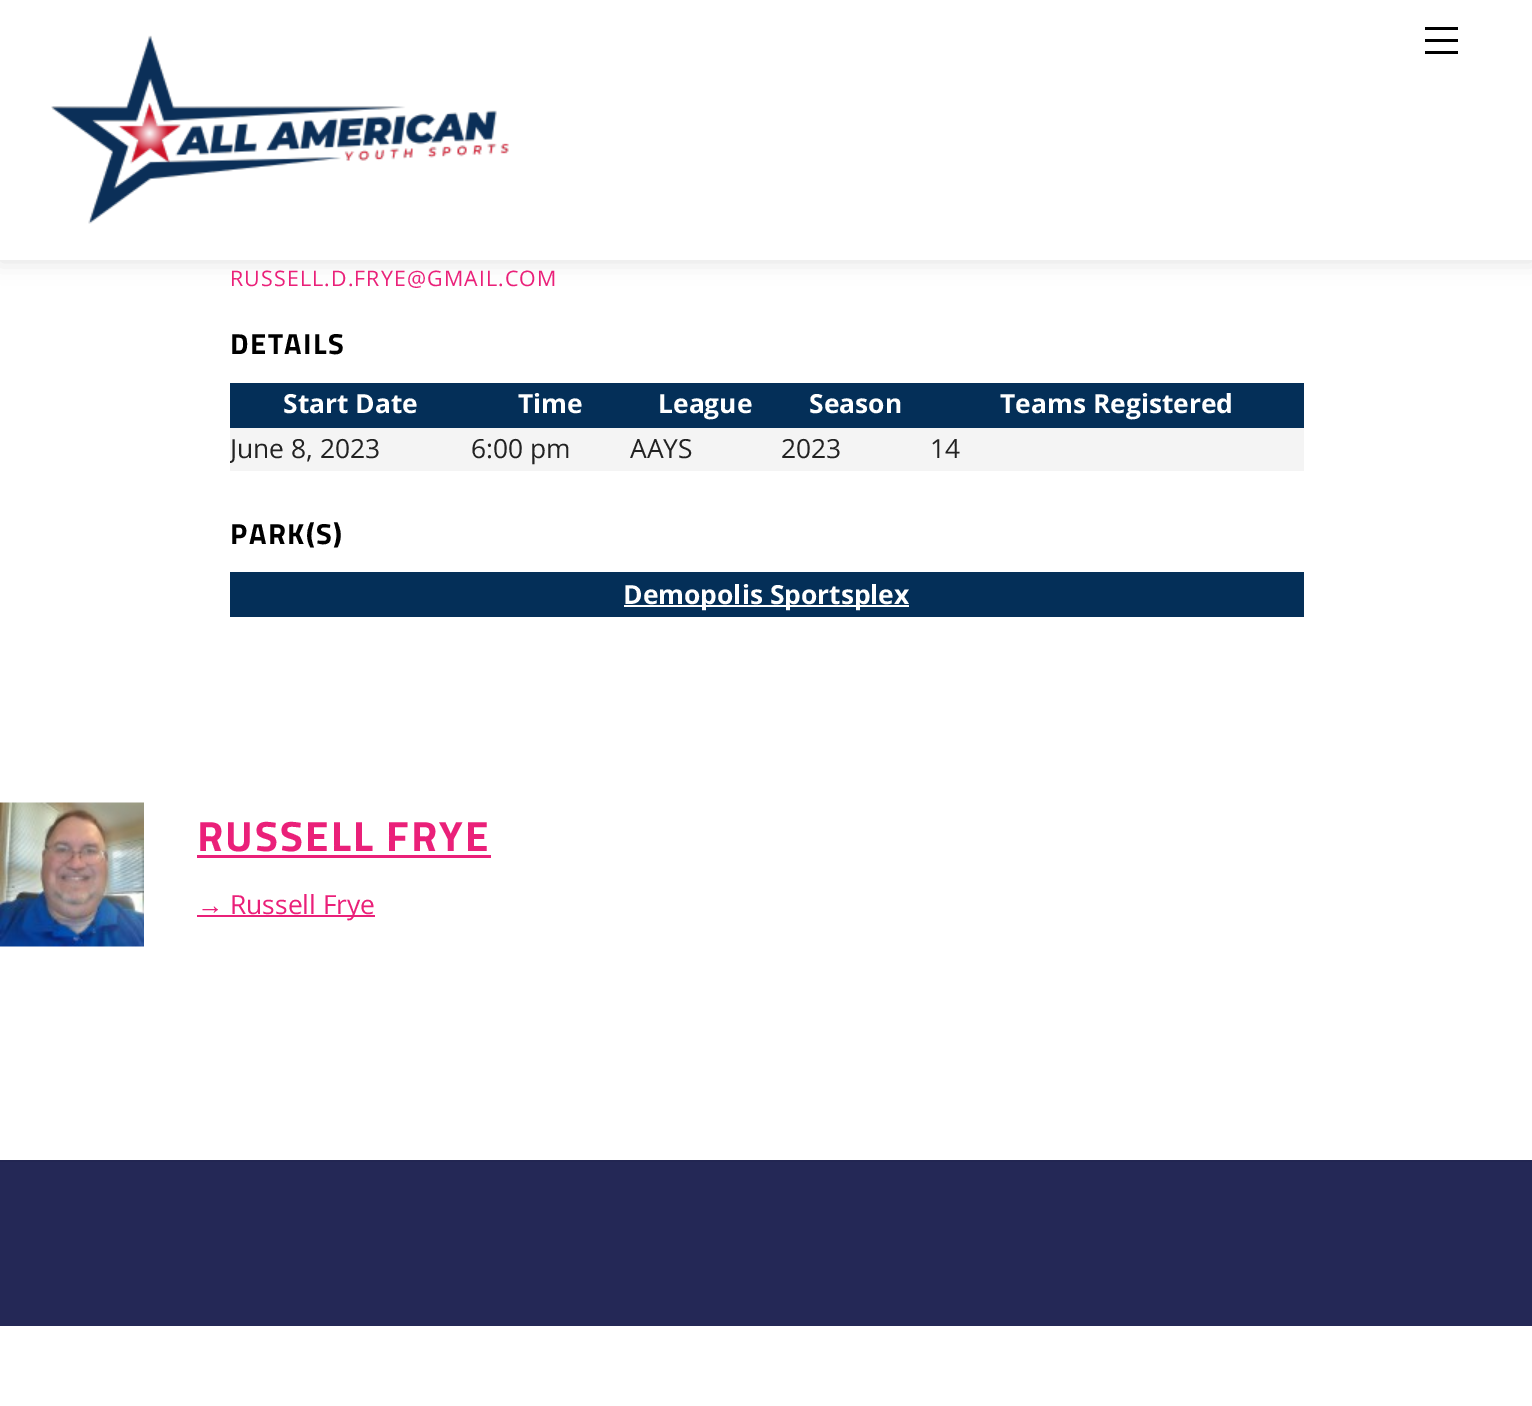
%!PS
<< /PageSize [1532 1406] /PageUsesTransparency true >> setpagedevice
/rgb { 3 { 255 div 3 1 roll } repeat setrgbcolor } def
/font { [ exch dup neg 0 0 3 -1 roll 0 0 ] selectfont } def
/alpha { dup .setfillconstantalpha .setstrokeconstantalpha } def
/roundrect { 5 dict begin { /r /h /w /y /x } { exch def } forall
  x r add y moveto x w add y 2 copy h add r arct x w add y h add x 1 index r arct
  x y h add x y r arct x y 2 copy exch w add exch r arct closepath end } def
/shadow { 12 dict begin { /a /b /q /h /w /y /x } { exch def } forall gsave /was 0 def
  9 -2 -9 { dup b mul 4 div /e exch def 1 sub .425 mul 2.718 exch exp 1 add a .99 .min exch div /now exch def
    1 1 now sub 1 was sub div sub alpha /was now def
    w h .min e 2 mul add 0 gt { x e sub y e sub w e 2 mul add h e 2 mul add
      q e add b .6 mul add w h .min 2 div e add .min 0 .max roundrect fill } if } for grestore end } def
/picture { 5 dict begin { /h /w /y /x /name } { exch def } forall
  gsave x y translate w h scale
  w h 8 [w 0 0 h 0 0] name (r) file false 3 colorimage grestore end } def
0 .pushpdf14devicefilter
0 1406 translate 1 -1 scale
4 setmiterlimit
255 255 255 rgb
0 0 1532 1406 rectfill
0 0 0 rgb
0 2 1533 259 0 11 0.12 shadow
255 255 255 rgb
0 0 1532 260 rectfill
(img/1.rgb) 51 35 458 189 picture
[
  [1425 51 33 3 0 0 0]
  [1425 27 33 3 0 0 0]
  [1425 39 33 3 0 0 0]
  [230 383 1074 45 4 47 88]
  [230 428 1074 43 244 244 244]
  [230 572 1074 45 4 47 88]
  [624 605 285 2 255 255 255]
] { aload pop rgb rectfill } forall
(img/2.rgb) 0 802 144 145 picture
[
  [197 855 294 3 234 32 121]
  [197 915 178 2 234 32 121]
  [0 1162 1532 164 36 40 86]
  [0 1160 1532 2 34 38 82]
] { aload pop rgb rectfill } forall
/OpenSans-Regular 21.4 font
234 32 121 rgb
230 286 moveto 1.1 0 (RUSSELL.D.FRYE@GMAIL.COM) ashow
/TitilliumWeb-Bold 29 font
0 0 0 rgb
230 354 moveto 1.5 0 (DETAILS) ashow
/OpenSans-Bold 26.4 font
255 255 255 rgb
[
  [(Start Date) 283 413]
  [(Time) 518 413]
  [(League) 658 413]
  [(Season) 809 413]
  [(Teams Registered) 1000 413]
] { aload pop moveto show } forall
gsave
230 383 1074 88 rectclip
/OpenSans-Regular 26.4 font
34 34 34 rgb
230 458 moveto (June 8, 2023) show
grestore
/OpenSans-Regular 26.4 font
34 34 34 rgb
[
  [(6:00 pm) 471 458]
  [(AAYS) 630 458]
  [(2023) 781 458]
  [(14) 930 458]
] { aload pop moveto show } forall
/TitilliumWeb-Bold 29 font
0 0 0 rgb
230 544 moveto 1.5 0 (PARK\(S\)) ashow
/OpenSans-Bold 26.4 font
255 255 255 rgb
623 604 moveto (Demopolis Sportsplex) show
/TitilliumWeb-Bold 42.25 font
234 32 121 rgb
197 851 moveto 2.1 0 (RUSSELL FRYE) ashow
/LiberationSans-Regular 26.4 font
197 914 moveto (→) show
/OpenSans-Regular 26.4 font
230 914 moveto (Russell Frye) show
.poppdf14devicefilter showpage
